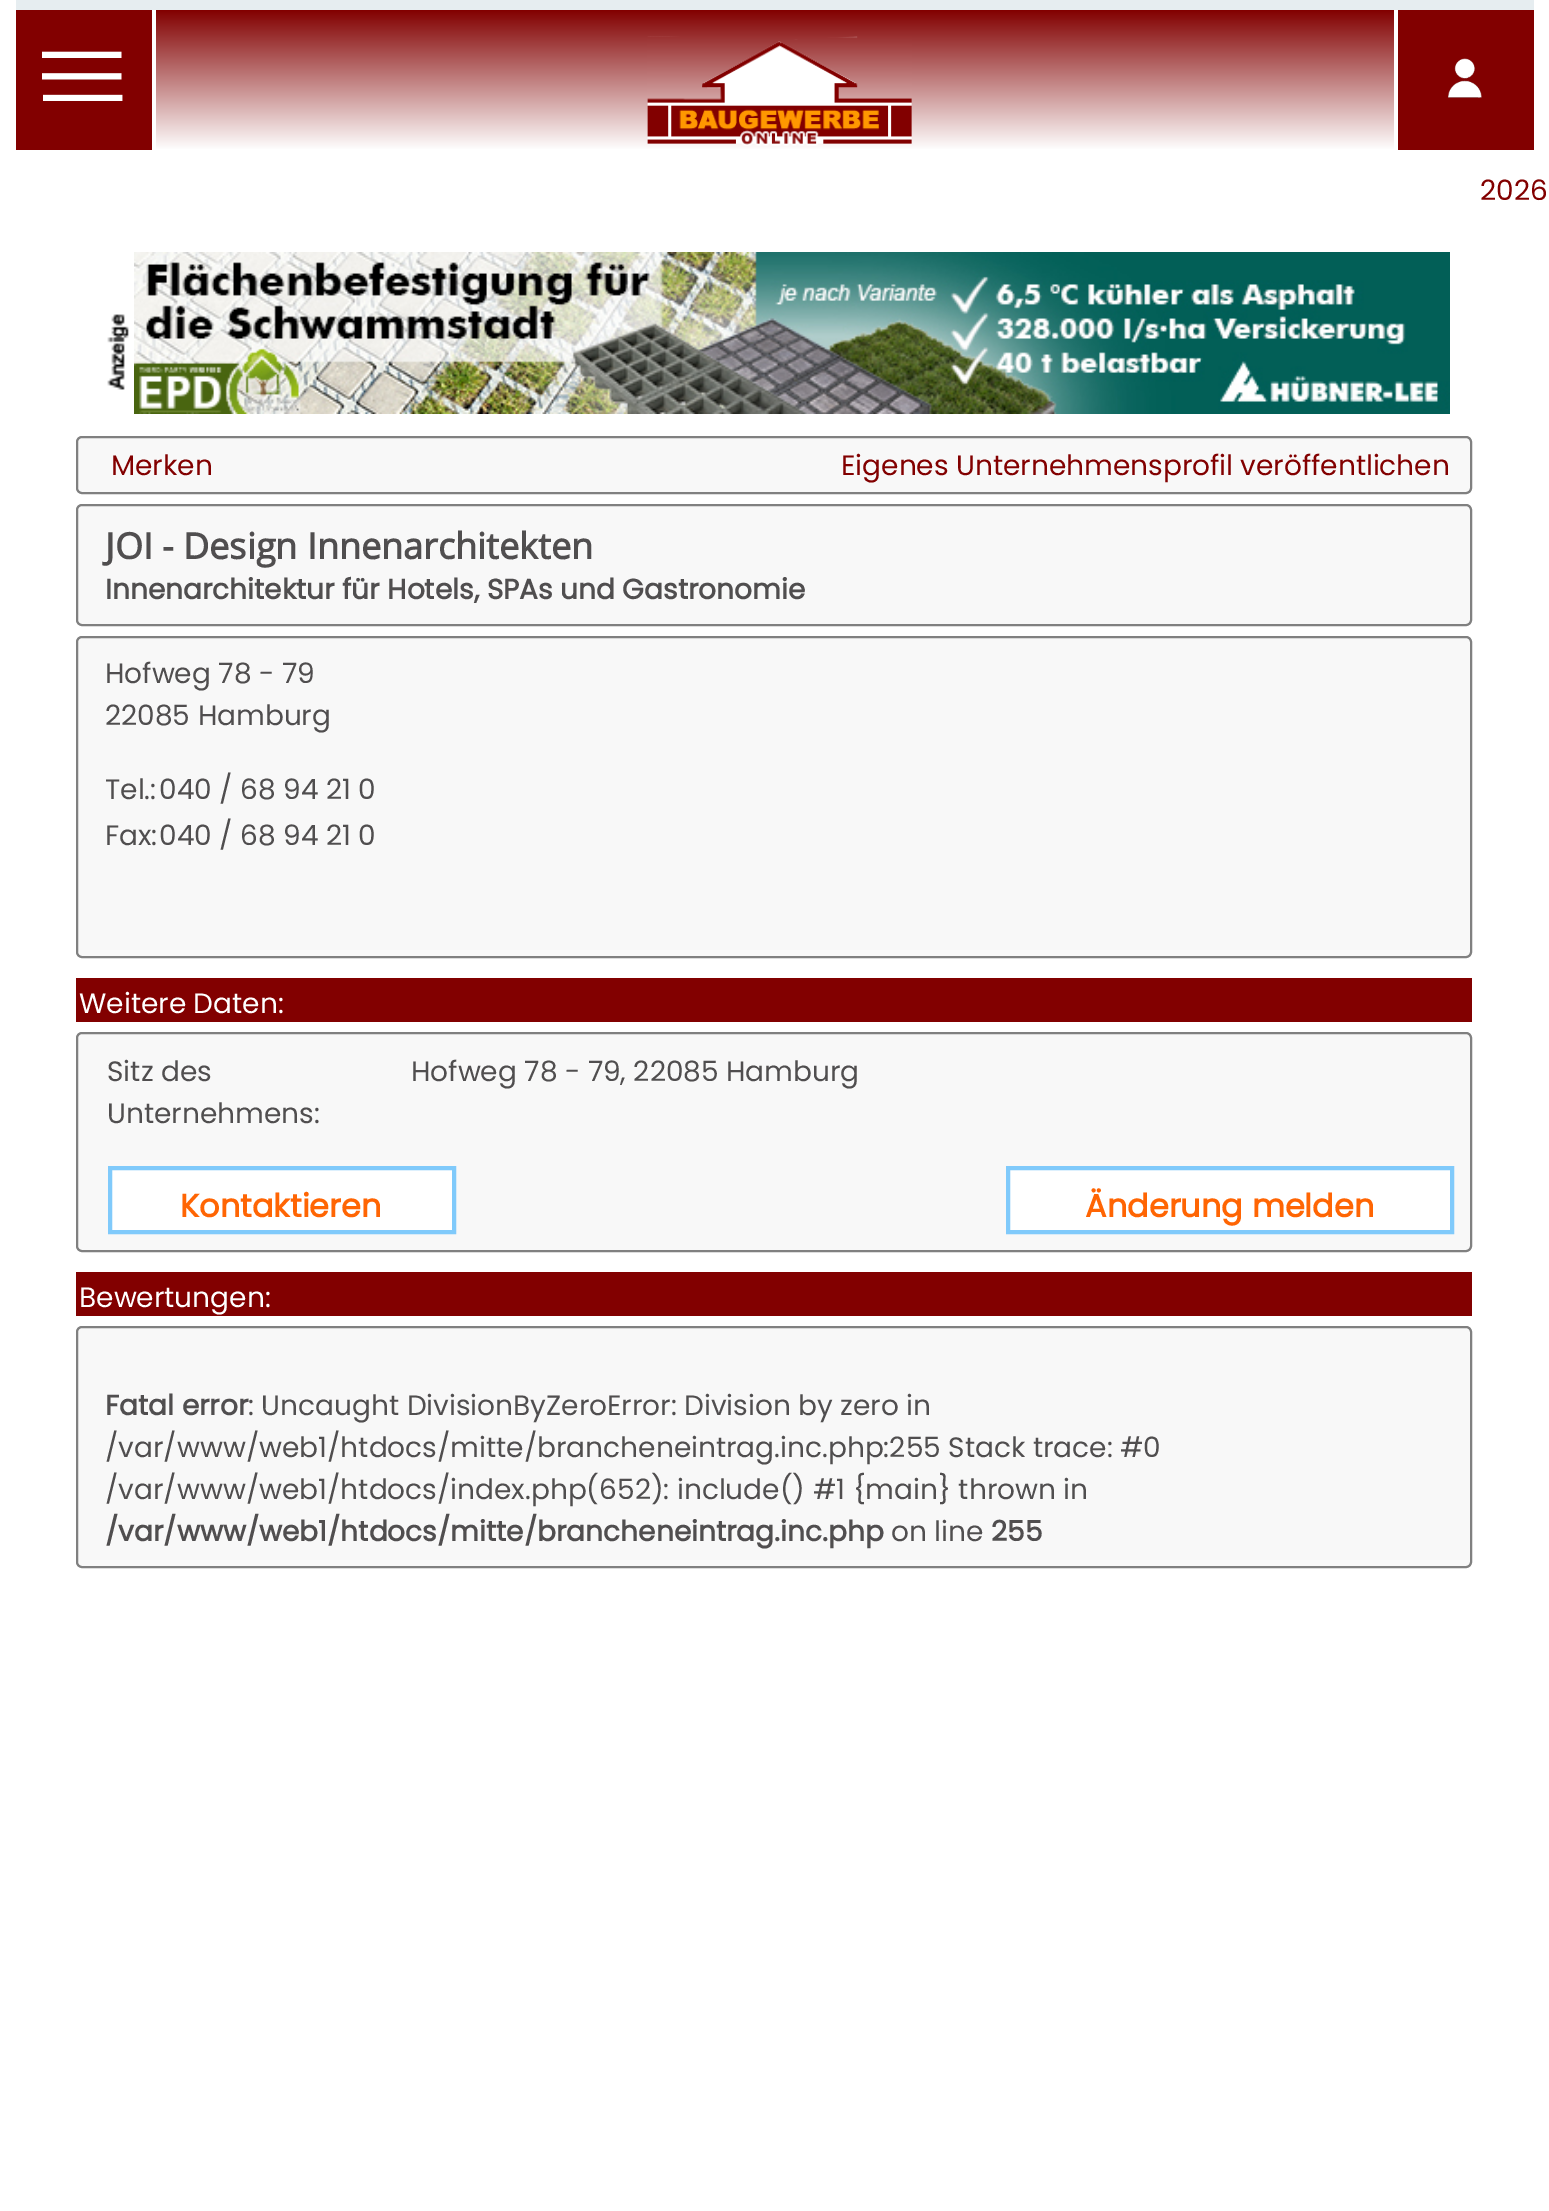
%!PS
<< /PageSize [1549 2211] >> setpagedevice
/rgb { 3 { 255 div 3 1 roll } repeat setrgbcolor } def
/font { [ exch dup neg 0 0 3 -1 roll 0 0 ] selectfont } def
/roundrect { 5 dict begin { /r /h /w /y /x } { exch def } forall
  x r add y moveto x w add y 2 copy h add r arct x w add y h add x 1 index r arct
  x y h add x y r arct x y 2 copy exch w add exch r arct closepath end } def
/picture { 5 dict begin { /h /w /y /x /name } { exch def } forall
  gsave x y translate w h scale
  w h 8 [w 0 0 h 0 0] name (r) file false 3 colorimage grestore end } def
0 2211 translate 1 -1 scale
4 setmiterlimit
255 255 255 rgb
0 0 1549 2211 rectfill
130 0 0 rgb
16 10 1518 140 rectfill
230 237 240 rgb
16 0 1518 10 rectfill
(img/1.rgb) 42 51 81 50 picture
gsave 156 11 moveto 1394 11 lineto 1394 150 lineto 156 150 lineto closepath clip newpath
<< /ShadingType 2 /ColorSpace /DeviceRGB /Coords [775 10 775 150] /Extend [true true] /Function << /FunctionType 2 /Domain [0 1] /C0 [0.51 0 0] /C1 [1 1 1] /N 1 >> >> shfill grestore
255 255 255 rgb
1394 10 4 140 rectfill
152 10 4 140 rectfill
(img/2.rgb) 647 36 265 110 picture
(img/3.rgb) 1448 58 34 40 picture
(img/4.rgb) 107 314 22 76 picture
(img/5.rgb) 134 252 1316 162 picture
248 248 248 rgb
77 437 1394 56 5 roundrect gsave fill grestore
128 128 128 rgb
2 setlinewidth
stroke
248 248 248 rgb
77 505 1394 120 5 roundrect gsave fill grestore
128 128 128 rgb
stroke
248 248 248 rgb
77 637 1394 320 5 roundrect gsave fill grestore
128 128 128 rgb
stroke
130 0 0 rgb
76 978 1396 44 rectfill
248 248 248 rgb
77 1033 1394 218 5 roundrect gsave fill grestore
128 128 128 rgb
stroke
255 255 255 rgb
110 1168 moveto 454 1168 lineto 454 1232 lineto 110 1232 lineto closepath gsave fill grestore
128 202 251 rgb
4 setlinewidth
stroke
255 255 255 rgb
1008 1168 moveto 1452 1168 lineto 1452 1232 lineto 1008 1232 lineto closepath gsave fill grestore
128 202 251 rgb
stroke
130 0 0 rgb
76 1272 1396 44 rectfill
248 248 248 rgb
77 1327 1394 240 5 roundrect gsave fill grestore
128 128 128 rgb
2 setlinewidth
stroke
/Poppins-Regular 28 font
130 0 0 rgb
[
  [(2026) 1480 200]
  [(Merken) 111 475]
  [(Eigenes Unternehmensprofil veröffentlichen) 841 475]
] { aload pop moveto show } forall
/OpenSans-Bold 36 font
80 78 79 rgb
105 559 moveto (JOI - Design Innenarchitekten) show
/Poppins-Bold 28 font
105 599 moveto (Innenarchitektur für Hotels, SPAs und Gastronomie) show
/Poppins-Regular 28 font
[
  [(Hofweg 78 - 79) 105 683]
  [(22085 Hamburg) 105 725]
  [(Tel.:) 105 799]
  [(040 / 68 94 21 0) 159 799]
  [(Fax:) 105 845]
  [(040 / 68 94 21 0) 159 845]
] { aload pop moveto show } forall
255 255 255 rgb
79 1013 moveto (Weitere Daten:) show
80 78 79 rgb
[
  [(Sitz des) 107 1081]
  [(Unternehmens:) 107 1123]
  [(Hofweg 78 - 79, 22085 Hamburg) 411 1081]
] { aload pop moveto show } forall
/Poppins-Bold 32 font
255 101 3 rgb
180 1217 moveto (Kontaktieren) show
1085 1217 moveto (Änderung melden) show
/Poppins-Regular 28 font
255 255 255 rgb
79 1307 moveto (Bewertungen:) show
/Poppins-Bold 28 font
80 78 79 rgb
105 1415 moveto (Fatal error) show
/Poppins-Regular 28 font
[
  [(: Uncaught DivisionByZeroError: Division by zero in) 248 1415]
  [(/var/www/web1/htdocs/mitte/brancheneintrag.inc.php:255 Stack trace: #0) 105 1457]
  [(/var/www/web1/htdocs/index.php\(652\): include\(\) #1 {main} thrown in) 105 1499]
] { aload pop moveto show } forall
/Poppins-Bold 28 font
105 1541 moveto (/var/www/web1/htdocs/mitte/brancheneintrag.inc.php) show
/Poppins-Regular 28 font
891 1541 moveto (on line) show
/Poppins-Bold 28 font
991 1541 moveto (255) show
showpage
